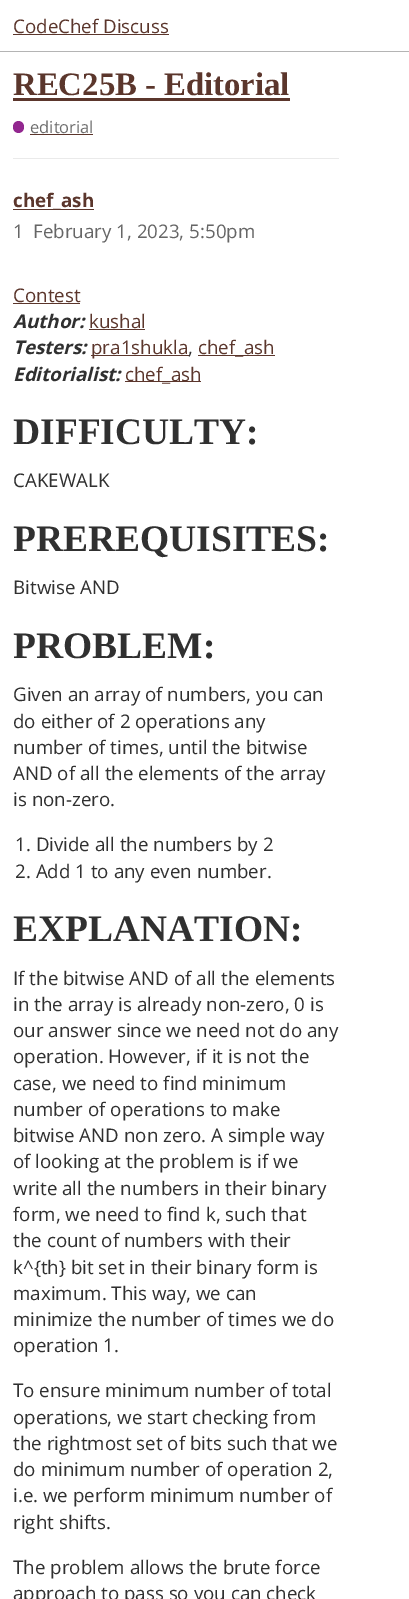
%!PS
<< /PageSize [409 1599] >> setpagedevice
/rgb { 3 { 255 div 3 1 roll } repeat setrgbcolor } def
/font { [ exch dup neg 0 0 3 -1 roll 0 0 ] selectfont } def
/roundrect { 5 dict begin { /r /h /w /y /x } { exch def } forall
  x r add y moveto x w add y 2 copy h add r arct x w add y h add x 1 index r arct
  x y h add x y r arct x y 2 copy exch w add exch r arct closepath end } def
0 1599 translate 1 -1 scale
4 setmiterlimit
255 255 255 rgb
0 0 409 1599 rectfill
[
  [0 51 409 1 180 180 180]
  [13 34 156 1 91 54 44]
  [13 98 277 3 91 54 44]
] { aload pop rgb rectfill } forall
146 39 143 rgb
13 121 11 12 5.5 roundrect fill
[
  [30 134 63 1 91 54 44]
  [13 158 326 1 234 234 234]
  [13 209 81 1 91 54 44]
  [13 303 67 1 91 54 44]
  [89 329 56 1 91 54 44]
  [91 355 98 1 91 54 44]
  [198 355 77 1 91 54 44]
  [125 381 76 1 91 54 44]
] { aload pop rgb rectfill } forall
/OpenSans-Regular 18.75 font
13 33 moveto (CodeChef Discuss) show
/LiberationSerif-Bold 32.75 font
13 95 moveto (REC25B - Editorial) show
/OpenSans-Regular 16.5 font
110 110 110 rgb
30 133 moveto (editorial) show
/OpenSans-Bold 18.75 font
91 54 44 rgb
13 207 moveto (chef_ash) show
/OpenSans-Regular 18.75 font
102 102 102 rgb
13 238 moveto (1) show
33 238 moveto (February 1, 2023, 5:50pm) show
91 54 44 rgb
13 302 moveto (Contest) show
/OpenSans-BoldItalic 18.75 font
48 48 48 rgb
13 328 moveto (Author:) show
/OpenSans-Regular 18.75 font
91 54 44 rgb
89 328 moveto (kushal) show
/OpenSans-BoldItalic 18.75 font
48 48 48 rgb
13 354 moveto (Testers:) show
/OpenSans-Regular 18.75 font
91 54 44 rgb
91 354 moveto (pra1shukla) show
48 48 48 rgb
188 354 moveto (,) show
91 54 44 rgb
198 354 moveto (chef_ash) show
/OpenSans-BoldItalic 18.75 font
48 48 48 rgb
13 381 moveto (Editorialist:) show
/OpenSans-Regular 18.75 font
91 54 44 rgb
125 381 moveto (chef_ash) show
/LiberationSerif-Bold 37.5 font
48 48 48 rgb
13 444 moveto (DIFFICULTY:) show
/OpenSans-Regular 18.75 font
13 487 moveto (CAKEWALK) show
/LiberationSerif-Bold 37.5 font
13 551 moveto (PREREQUISITES:) show
/OpenSans-Regular 18.75 font
13 594 moveto (Bitwise AND) show
/LiberationSerif-Bold 37.5 font
13 658 moveto (PROBLEM:) show
/OpenSans-Regular 18.75 font
[
  [(Given an array of numbers, you can) 13 701]
  [(do either of 2 operations any) 13 728]
  [(number of times, until the bitwise) 13 754]
  [(AND of all the elements of the array) 13 780]
  [(is non-zero.) 13 806]
  [(1. Divide all the numbers by 2) 15 851]
  [(2. Add 1 to any even number.) 15 878]
] { aload pop moveto show } forall
/LiberationSerif-Bold 37.5 font
13 941 moveto (EXPLANATION:) show
/OpenSans-Regular 18.75 font
[
  [(If the bitwise AND of all the elements) 13 985]
  [(in the array is already non-zero, 0 is) 13 1011]
  [(our answer since we need not do any) 13 1037]
  [(operation. However, if it is not the) 13 1063]
  [(case, we need to find minimum) 13 1090]
  [(number of operations to make) 13 1116]
  [(bitwise AND non zero. A simple way) 13 1142]
  [(of looking at the problem is if we) 13 1168]
  [(write all the numbers in their binary) 13 1195]
  [(form, we need to find k, such that) 13 1221]
  [(the count of numbers with their) 13 1247]
  [(k^{th} bit set in their binary form is) 13 1274]
  [(maximum. This way, we can) 13 1300]
  [(minimize the number of times we do) 13 1326]
  [(operation 1.) 13 1352]
  [(To ensure minimum number of total) 13 1397]
  [(operations, we start checking from) 13 1424]
  [(the rightmost set of bits such that we) 13 1450]
  [(do minimum number of operation 2,) 13 1476]
  [(i.e. we perform minimum number of) 13 1502]
  [(right shifts.) 13 1529]
  [(The problem allows the brute force) 13 1574]
  [(approach to pass so you can check) 13 1600]
] { aload pop moveto show } forall
showpage
